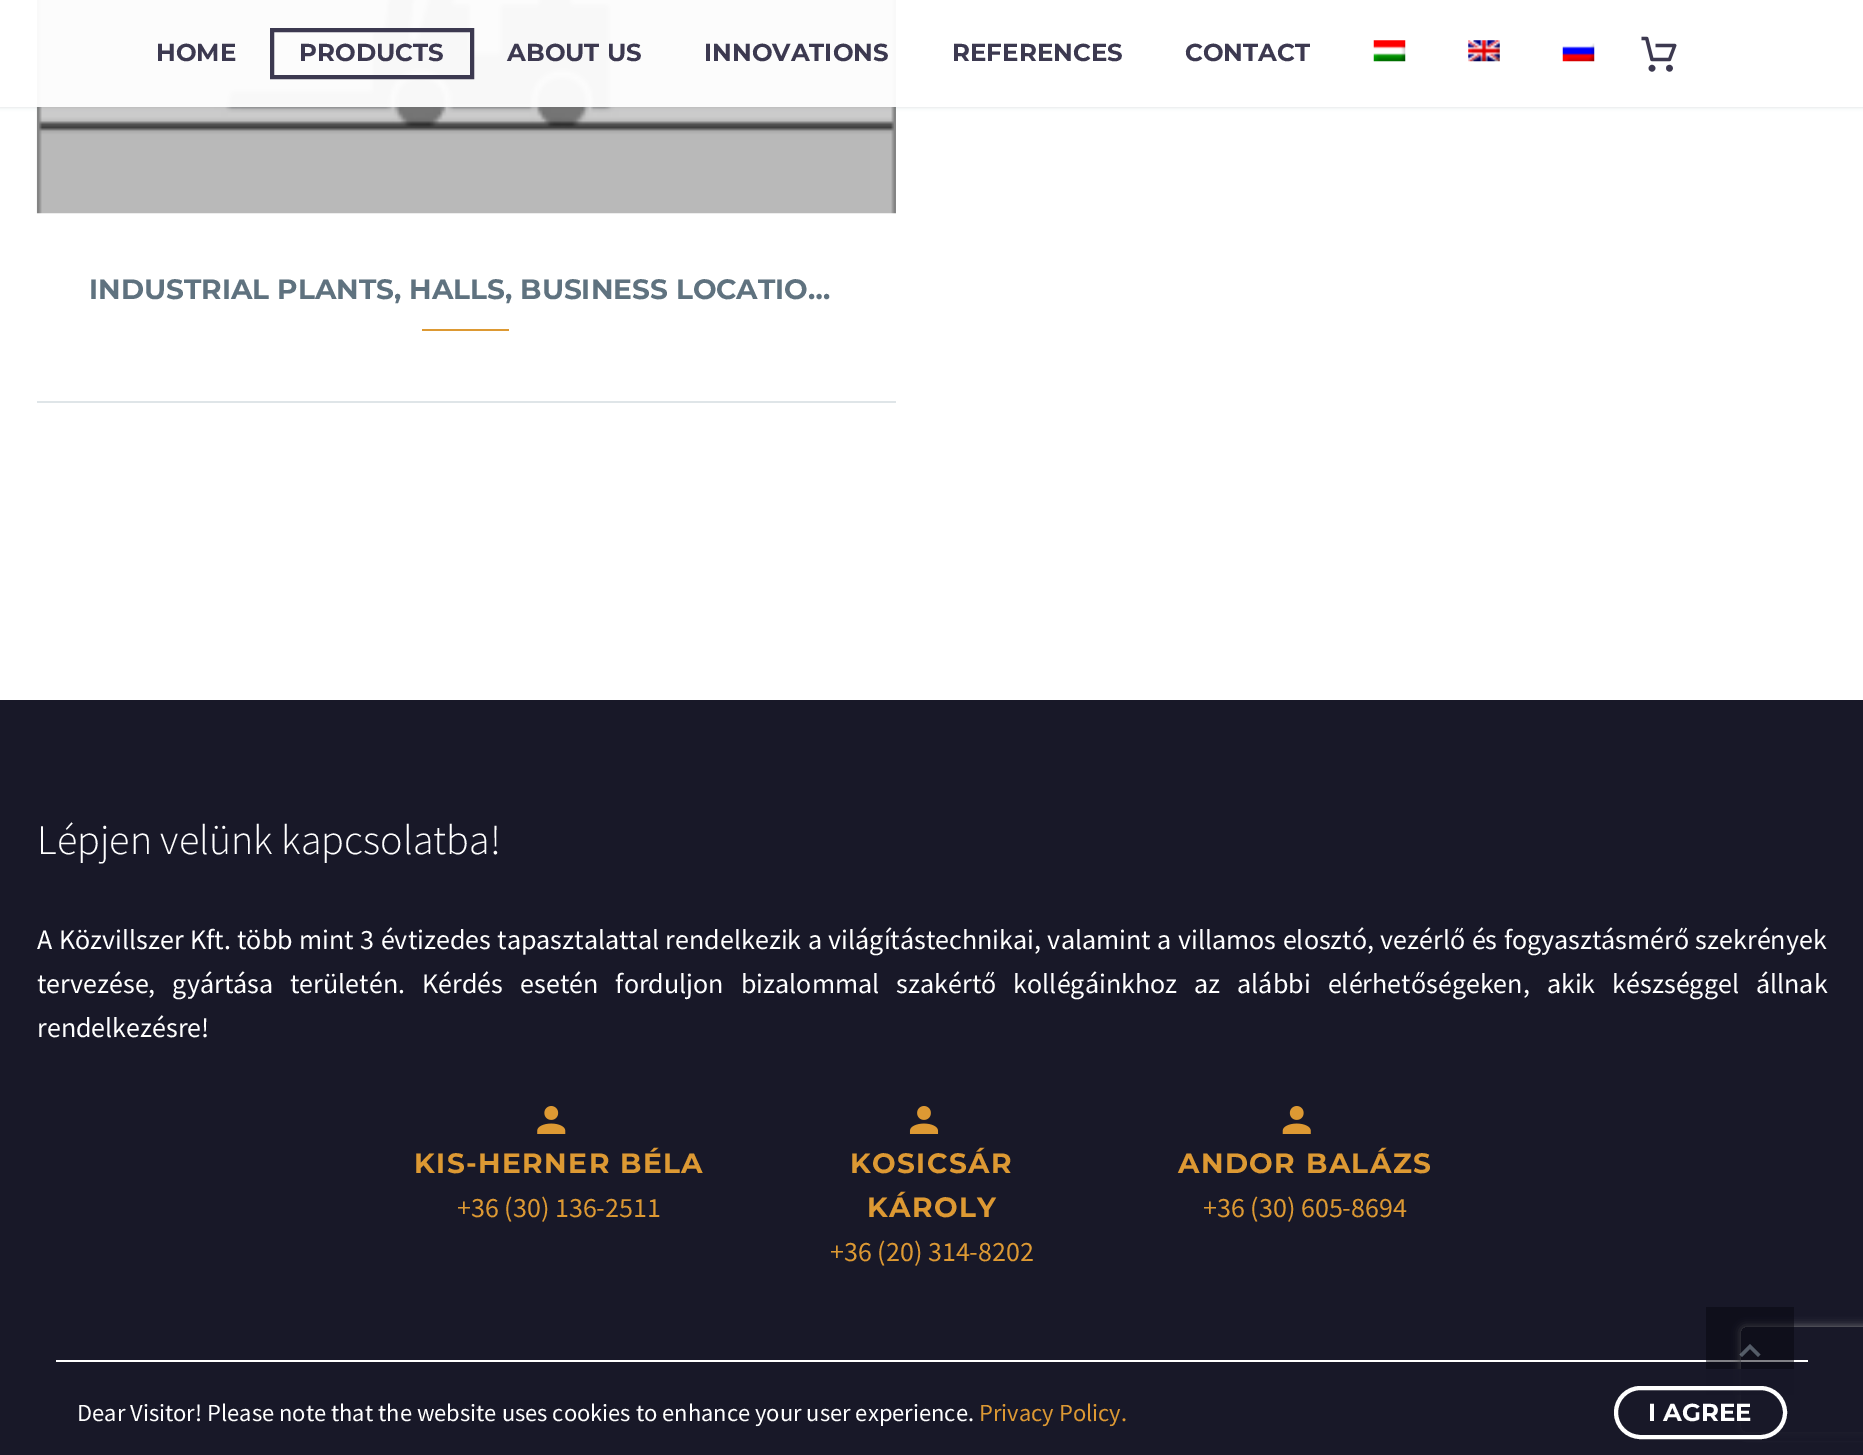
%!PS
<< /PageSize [1863 1455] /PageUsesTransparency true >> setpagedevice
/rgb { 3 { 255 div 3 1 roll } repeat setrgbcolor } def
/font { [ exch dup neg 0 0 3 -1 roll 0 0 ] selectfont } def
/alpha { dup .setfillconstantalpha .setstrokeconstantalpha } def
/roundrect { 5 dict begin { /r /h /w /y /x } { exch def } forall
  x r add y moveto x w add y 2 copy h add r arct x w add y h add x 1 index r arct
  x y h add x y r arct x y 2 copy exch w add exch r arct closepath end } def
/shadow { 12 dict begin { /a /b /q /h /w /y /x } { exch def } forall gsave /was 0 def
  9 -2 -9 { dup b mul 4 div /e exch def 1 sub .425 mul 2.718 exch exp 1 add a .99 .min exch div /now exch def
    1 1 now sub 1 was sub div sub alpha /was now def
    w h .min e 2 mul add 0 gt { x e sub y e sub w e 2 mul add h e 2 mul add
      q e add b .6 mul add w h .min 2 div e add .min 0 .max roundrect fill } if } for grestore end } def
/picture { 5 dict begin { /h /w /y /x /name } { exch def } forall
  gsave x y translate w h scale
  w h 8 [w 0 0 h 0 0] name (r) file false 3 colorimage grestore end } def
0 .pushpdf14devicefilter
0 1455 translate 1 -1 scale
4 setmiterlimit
24 24 40 rgb
0 0 1863 1455 rectfill
255 255 255 rgb
0 0 1863 700 rectfill
(img/5.rgb) 36 0 860 214 picture
gsave
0 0 moveto 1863 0 lineto 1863 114 lineto 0 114 lineto closepath 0 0 moveto 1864 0 lineto 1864 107 lineto 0 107 lineto closepath eoclip newpath
56 69 84 rgb
0 0 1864 107 0 2 0.2 shadow
grestore
0.95 alpha
0 0 1863 107 rectfill
1 alpha
60 57 80 rgb
4 setlinewidth
272 30 200 47 rectstroke
(img/1.rgb) 1373 40 33 22 picture
(img/2.rgb) 1468 40 32 22 picture
(img/3.rgb) 1562 43 33 19 picture
(img/4.rgb) 1641 36 36 36 picture
223 229 232 rgb
37 401 859 2 rectfill
221 153 51 rgb
422 329 87 2 rectfill
(img/6.rgb) 537 1106 14 28 picture
(img/7.rgb) 551 1106 15 28 picture
(img/8.rgb) 909 1106 15 28 picture
(img/9.rgb) 924 1106 15 28 picture
(img/10.rgb) 1282 1106 15 28 picture
(img/11.rgb) 1297 1106 14 28 picture
255 255 255 rgb
56 1360 1752 2 rectfill
gsave
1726 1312 moveto 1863 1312 lineto 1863 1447 lineto 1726 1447 lineto closepath 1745 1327 moveto 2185 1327 lineto 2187 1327 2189 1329 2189 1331 curveto 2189 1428 lineto 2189 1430 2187 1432 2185 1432 curveto 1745 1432 lineto 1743 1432 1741 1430 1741 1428 curveto 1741 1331 lineto 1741 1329 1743 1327 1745 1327 curveto closepath eoclip newpath
128 128 128 rgb
1741 1327 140 105 4 4.5 1 shadow
grestore
0.5 alpha
6 6 15 rgb
1706 1307 88 88 rectfill
153 169 181 rgb
1742 1357 moveto 1750 1349 lineto 1758 1357 lineto 1760.5 1354.5 lineto 1750 1344 lineto 1739.5 1354.5 lineto closepath fill
0.93 alpha
24 24 40 rgb
1706 1369 157 72 rectfill
1 alpha
255 255 255 rgb
1616 1388 169 49 24.5 roundrect stroke
/Montserrat-Bold 24.5 font
60 57 80 rgb
[
  [(HOME) 156 61]
  [(PRODUCTS) 299 61]
  [(ABOUT US) 507 61]
  [(INNOVATIONS) 704 61]
  [(REFERENCES) 952 61]
  [(CONTACT) 1185 61]
] { aload pop moveto show } forall
/Montserrat-Bold 28 font
95 114 127 rgb
89 299 moveto (INDUSTRIAL PLANTS, HALLS, BUSINESS LOCATIO…) show
/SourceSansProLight-Light 42 font
255 255 255 rgb
37 854 moveto (Lépjen velünk kapcsolatba!) show
/SourceSansPro-Regular 28 font
37 949 moveto 0.8 0 32 (A Közvillszer Kft. több mint 3 évtizedes tapasztalattal rendelkezik a világítástechnikai, valamint a villamos elosztó, vezérlő és fogyasztásmérő szekrények) widthshow
37 993 moveto 11.5 0 32 (tervezése, gyártása területén. Kérdés esetén forduljon bizalommal szakértő kollégáinkhoz az alábbi elérhetőségeken, akik készséggel állnak) widthshow
37 1037 moveto (rendelkezésre!) show
/Montserrat-Bold 28 font
221 153 51 rgb
414 1173 moveto 1.4 0 (KIS-HERNER BÉLA) ashow
/SourceSansPro-Regular 28 font
457 1217 moveto (+36 \(30\) 136-2511) show
/Montserrat-Bold 28 font
850 1173 moveto 1.4 0 (KOSICSÁR) ashow
867 1217 moveto 1.4 0 (KÁROLY) ashow
/SourceSansPro-Regular 28 font
830 1261 moveto (+36 \(20\) 314-8202) show
/Montserrat-Bold 28 font
1178 1173 moveto 1.4 0 (ANDOR BALÁZS) ashow
/SourceSansPro-Regular 28 font
1203 1217 moveto (+36 \(30\) 605-8694) show
/SourceSansPro-Regular 24.5 font
255 255 255 rgb
77 1421 moveto (Dear Visitor! Please note that the website uses cookies to enhance your user experience.) show
221 153 51 rgb
979 1421 moveto (Privacy Policy.) show
/Montserrat-Bold 24.5 font
255 255 255 rgb
1648 1421 moveto (I AGREE) show
.poppdf14devicefilter showpage
